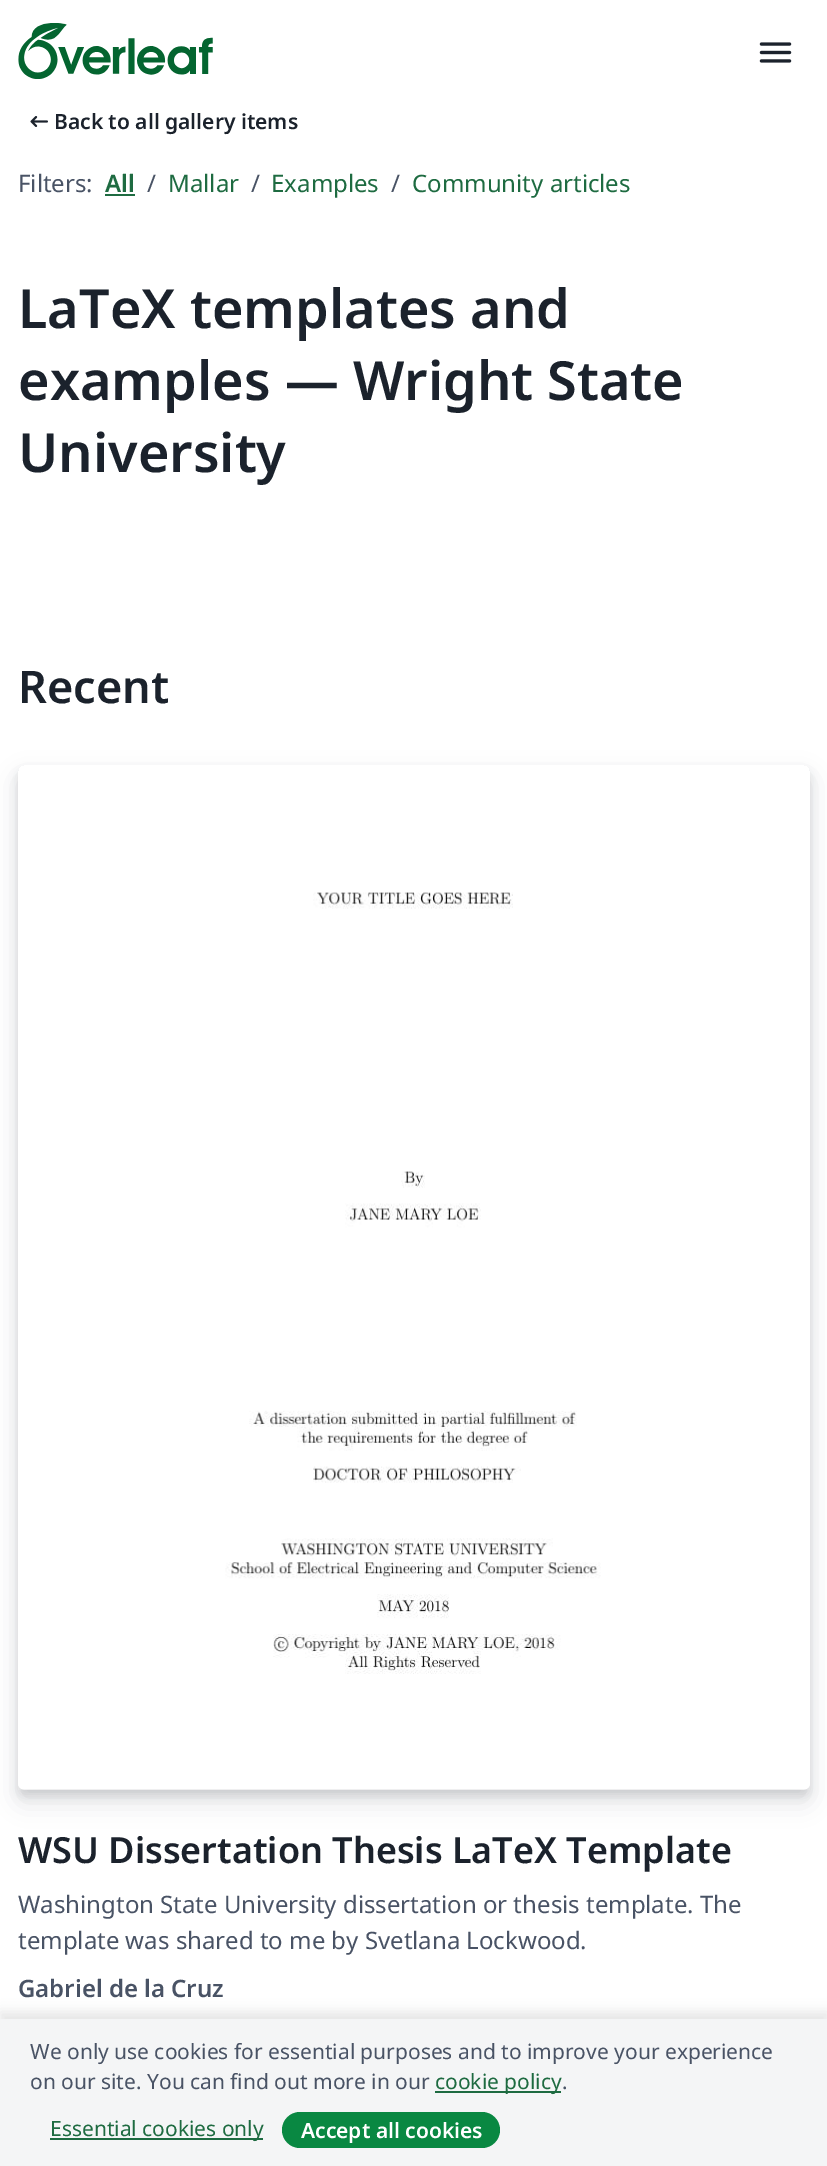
%!PS
<< /PageSize [827 2166] /PageUsesTransparency true >> setpagedevice
/rgb { 3 { 255 div 3 1 roll } repeat setrgbcolor } def
/font { [ exch dup neg 0 0 3 -1 roll 0 0 ] selectfont } def
/alpha { dup .setfillconstantalpha .setstrokeconstantalpha } def
/roundrect { 5 dict begin { /r /h /w /y /x } { exch def } forall
  x r add y moveto x w add y 2 copy h add r arct x w add y h add x 1 index r arct
  x y h add x y r arct x y 2 copy exch w add exch r arct closepath end } def
/shadow { 12 dict begin { /a /b /q /h /w /y /x } { exch def } forall gsave /was 0 def
  9 -2 -9 { dup b mul 4 div /e exch def 1 sub .425 mul 2.718 exch exp 1 add a .99 .min exch div /now exch def
    1 1 now sub 1 was sub div sub alpha /was now def
    w h .min e 2 mul add 0 gt { x e sub y e sub w e 2 mul add h e 2 mul add
      q e add b .6 mul add w h .min 2 div e add .min 0 .max roundrect fill } if } for grestore end } def
/picture { 5 dict begin { /h /w /y /x /name } { exch def } forall
  gsave x y translate w h scale
  w h 8 [w 0 0 h 0 0] name (r) file false 3 colorimage grestore end } def
0 .pushpdf14devicefilter
0 2166 translate 1 -1 scale
4 setmiterlimit
255 255 255 rgb
0 0 827 2166 rectfill
(img/1.rgb) 18 23 195 56 picture
(img/2.rgb) 759 42 33 21 picture
(img/3.rgb) 30 116 18 11 picture
30 107 65 rgb
105 194 30 2 rectfill
gsave
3 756 moveto 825 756 lineto 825 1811 lineto 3 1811 lineto closepath 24 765 moveto 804 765 lineto 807.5 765 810 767.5 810 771 curveto 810 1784 lineto 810 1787.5 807.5 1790 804 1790 curveto 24 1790 lineto 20.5 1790 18 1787.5 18 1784 curveto 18 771 lineto 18 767.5 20.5 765 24 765 curveto closepath eoclip newpath
30 37 48 rgb
18 771 792 1025 6 4.5 0.12 shadow
grestore
gsave
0 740 moveto 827 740 lineto 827 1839 lineto 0 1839 lineto closepath 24 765 moveto 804 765 lineto 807.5 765 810 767.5 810 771 curveto 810 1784 lineto 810 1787.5 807.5 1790 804 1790 curveto 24 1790 lineto 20.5 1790 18 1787.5 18 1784 curveto 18 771 lineto 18 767.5 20.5 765 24 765 curveto closepath eoclip newpath
30 37 48 rgb
18 777 792 1025 6 12 0.12 shadow
grestore
(img/4.rgb) 18 892 792 898 picture
0 0 0 rgb
0 2012 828 147 0 6 0.1 shadow
[
  [0 2019 827 147 244 245 246]
  [435 2091 126 2 30 107 65]
  [50 2138 213 2 30 107 65]
] { aload pop rgb rectfill } forall
9 136 66 rgb
282 2112 218 36 18 roundrect fill
/NotoSans-SemiBold 21 font
27 34 44 rgb
54 129 moveto (Back to all gallery items) show
/NotoSans-Regular 24 font
73 83 101 rgb
18 192 moveto (Filters:) show
/NotoSans-SemiBold 24 font
30 107 65 rgb
105 192 moveto (All) show
/NotoSans-Regular 24 font
73 83 101 rgb
147 192 moveto (/) show
30 107 65 rgb
168 192 moveto (Mallar) show
73 83 101 rgb
251 192 moveto (/) show
30 107 65 rgb
271 192 moveto (Examples) show
73 83 101 rgb
391 192 moveto (/) show
30 107 65 rgb
412 192 moveto (Community articles) show
/NotoSans-SemiBold 54 font
27 34 44 rgb
[
  [(LaTeX templates and) 18 328]
  [(examples — Wright State) 18 400]
  [(University) 18 472]
] { aload pop moveto show } forall
/NotoSans-SemiBold 45 font
18 703 moveto (Recent) show
/NotoSans-SemiBold 36 font
18 1863 moveto (WSU Dissertation Thesis LaTeX Template) show
/NotoSans-Regular 24 font
73 83 101 rgb
18 1913 moveto (Washington State University dissertation or thesis template. The) show
18 1949 moveto (template was shared to me by Svetlana Lockwood.) show
/NotoSans-SemiBold 24 font
18 1997 moveto (Gabriel de la Cruz) show
/NotoSans-Regular 21 font
30 2059 moveto (We only use cookies for essential purposes and to improve your experience) show
30 2089 moveto (on our site. You can find out more in our) show
30 107 65 rgb
435 2089 moveto (cookie policy) show
73 83 101 rgb
562 2089 moveto (.) show
30 107 65 rgb
50 2136 moveto (Essential cookies only) show
/NotoSans-SemiBold 21 font
255 255 255 rgb
301 2138 moveto (Accept all cookies) show
.poppdf14devicefilter showpage
